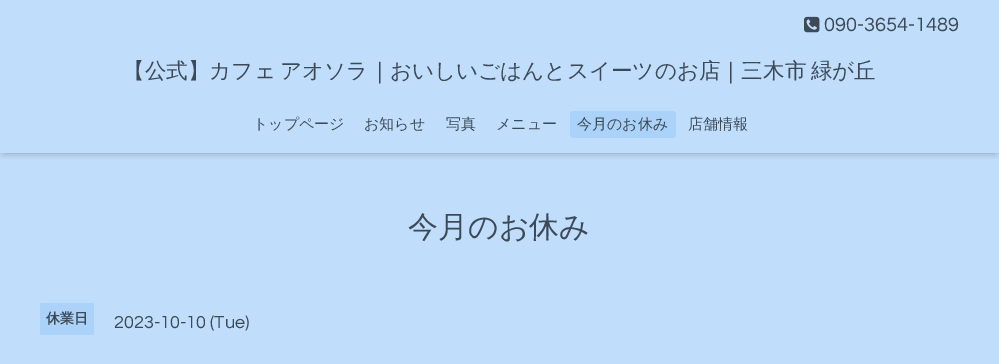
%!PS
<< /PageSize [999 364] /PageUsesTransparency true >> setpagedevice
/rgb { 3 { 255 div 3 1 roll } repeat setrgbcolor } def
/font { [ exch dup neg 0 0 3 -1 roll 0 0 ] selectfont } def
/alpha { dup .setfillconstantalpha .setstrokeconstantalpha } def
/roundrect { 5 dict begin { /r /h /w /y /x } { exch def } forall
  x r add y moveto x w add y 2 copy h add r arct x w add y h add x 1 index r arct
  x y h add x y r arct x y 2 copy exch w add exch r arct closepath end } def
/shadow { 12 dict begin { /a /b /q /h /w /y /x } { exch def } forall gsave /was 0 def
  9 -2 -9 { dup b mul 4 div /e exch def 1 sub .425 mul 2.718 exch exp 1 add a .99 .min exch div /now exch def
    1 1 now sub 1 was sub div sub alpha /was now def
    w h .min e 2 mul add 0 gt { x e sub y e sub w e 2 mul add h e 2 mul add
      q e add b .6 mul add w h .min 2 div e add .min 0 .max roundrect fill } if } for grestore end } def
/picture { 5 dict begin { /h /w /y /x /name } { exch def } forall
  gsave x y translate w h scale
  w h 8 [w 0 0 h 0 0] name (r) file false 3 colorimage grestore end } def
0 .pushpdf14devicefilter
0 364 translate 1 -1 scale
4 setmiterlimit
192 222 252 rgb
0 0 999 364 rectfill
gsave
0 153 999 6 rectclip
0 0 0 rgb
4 5 991 145 0 5 0.6 shadow
grestore
(img/1.rgb) 804 16 16 17 picture
171 210 249 rgb
570 111 106 27 3 roundrect fill
40 303 54 32 2 roundrect fill
/Questrial-Regular 20 font
60 74 87 rgb
824 31 moveto (090-3654-1489) show
/WenQuanYiZenHei-Medium 21.6 font
123 78 moveto -2 0 32 (【公式】カフェ アオソラ｜おいしいごはんとスイーツのお店｜三木市 緑が丘) widthshow
/WenQuanYiZenHei-Medium 15 font
[
  [(トップページ) 253 129]
  [(お知らせ) 364 129]
  [(写真) 446 129]
  [(メニュー) 496 129]
  [(今月のお休み) 577 129]
  [(店舗情報) 688 129]
] { aload pop moveto show } forall
/WenQuanYiZenHei-Medium 30 font
408 237 moveto (今月のお休み) show
/WenQuanYiZenHei-Bold 14 font
46 323 moveto (休業日) show
/Questrial-Regular 18 font
114 328 moveto (2023-10-10 \(Tue\)) show
.poppdf14devicefilter showpage
